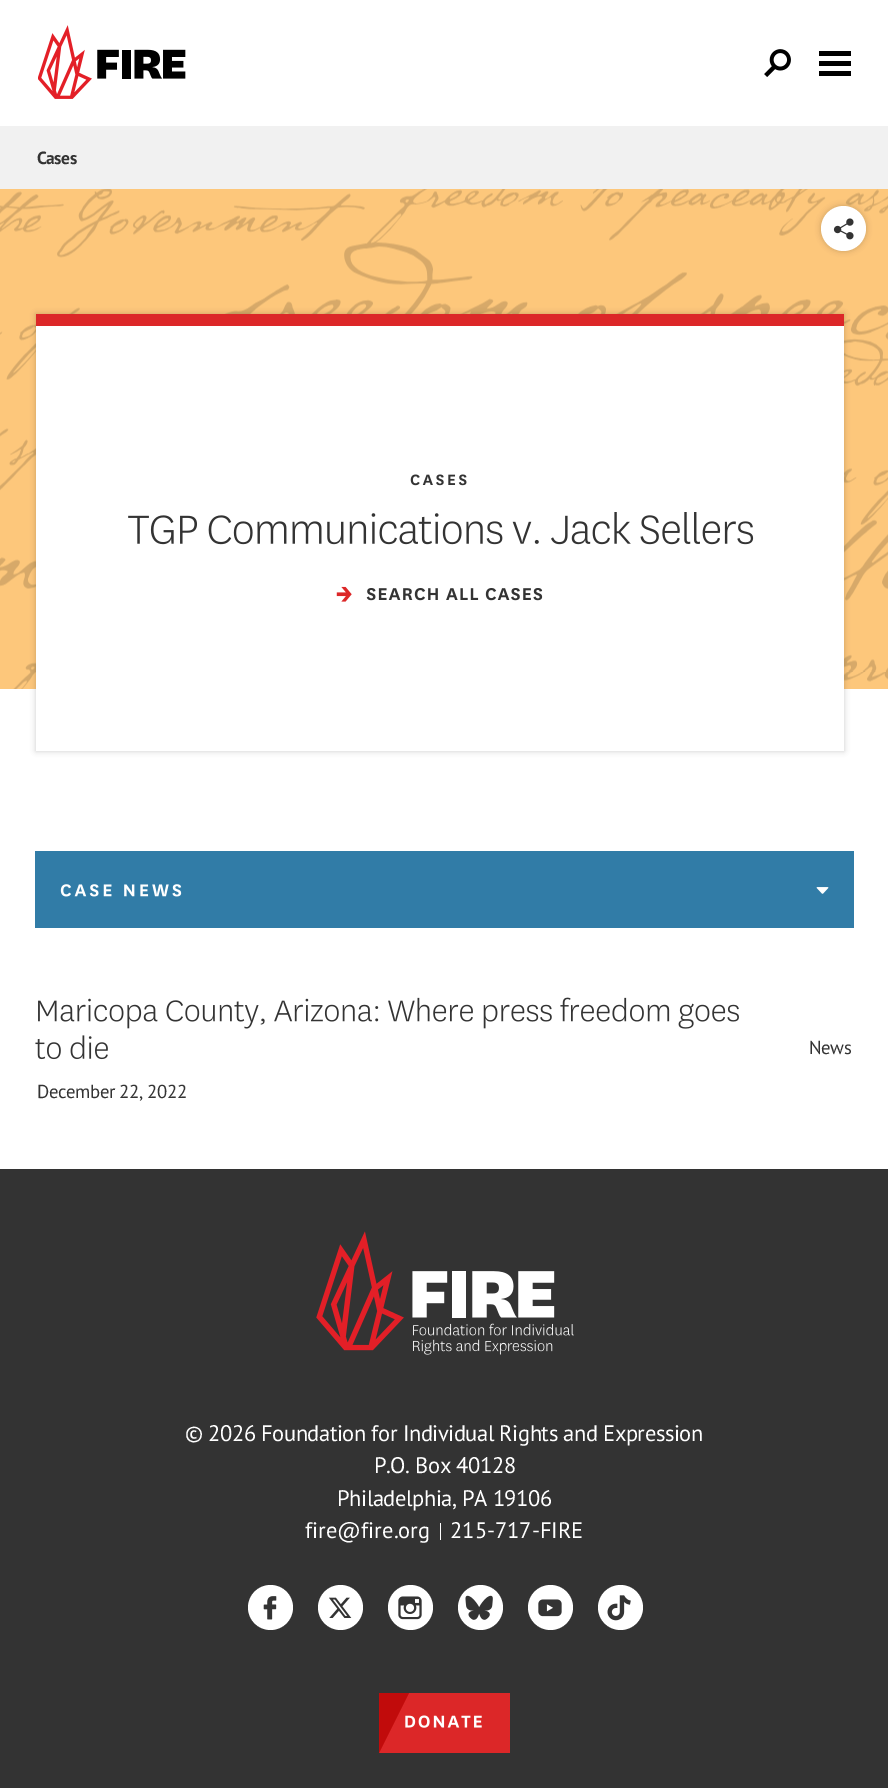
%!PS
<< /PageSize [888 1788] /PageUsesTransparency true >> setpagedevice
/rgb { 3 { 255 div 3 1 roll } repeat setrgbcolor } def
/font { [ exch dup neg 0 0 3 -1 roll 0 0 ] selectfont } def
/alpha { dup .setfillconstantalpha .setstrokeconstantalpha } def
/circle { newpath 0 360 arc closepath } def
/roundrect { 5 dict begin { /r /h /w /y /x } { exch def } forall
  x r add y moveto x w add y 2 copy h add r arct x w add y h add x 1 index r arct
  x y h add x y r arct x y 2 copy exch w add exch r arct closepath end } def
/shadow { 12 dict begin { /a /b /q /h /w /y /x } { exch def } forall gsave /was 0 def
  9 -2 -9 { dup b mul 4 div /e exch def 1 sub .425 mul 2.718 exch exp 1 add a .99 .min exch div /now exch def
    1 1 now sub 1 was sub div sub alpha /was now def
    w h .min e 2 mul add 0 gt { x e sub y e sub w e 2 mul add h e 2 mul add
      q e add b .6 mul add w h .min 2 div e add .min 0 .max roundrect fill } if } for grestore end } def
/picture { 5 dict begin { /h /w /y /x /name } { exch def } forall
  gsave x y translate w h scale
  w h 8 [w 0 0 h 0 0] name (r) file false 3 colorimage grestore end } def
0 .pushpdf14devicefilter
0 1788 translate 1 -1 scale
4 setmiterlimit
255 255 255 rgb
0 0 888 1788 rectfill
(img/1.rgb) 38 25 148 74 picture
(img/2.rgb) 764 49 27 28 picture
[
  [819 61 32 5 0 0 0]
  [819 51 32 5 0 0 0]
  [819 71 32 5 0 0 0]
  [0 126 888 63 241 241 241]
  [0 189 888 500 253 199 123]
] { aload pop rgb rectfill } forall
(img/3.rgb) 0 189 888 500 picture
0 0 0 rgb
821 206 45 45 22.5 3 0.2 shadow
255 255 255 rgb
843.5 228.5 22.5 circle fill
(img/4.rgb) 833 218 21 22 picture
0 0 0 rgb
36 314 808 437 0 3 0.2 shadow
255 255 255 rgb
36 326 808 425 rectfill
220 39 40 rgb
36 314 808 12 rectfill
(img/5.rgb) 410 474 57 12 picture
(img/6.rgb) 128 512 626 33 picture
(img/7.rgb) 336 586 16 16 picture
(img/8.rgb) 366 588 177 13 picture
49 124 167 rgb
35 851 819 77 rectfill
(img/9.rgb) 816 887 13 7 picture
(img/10.rgb) 60 884 122 13 picture
(img/11.rgb) 38 997 701 32 picture
(img/12.rgb) 35 1035 73 25 picture
51 51 51 rgb
0 1169 888 619 rectfill
(img/13.rgb) 316 1231 258 124 picture
255 255 255 rgb
440 1523 1 17 rectfill
270.5 1607.5 22.5 circle fill
(img/14.rgb) 263 1596 14 24 picture
340.5 1607.5 22.5 circle fill
(img/15.rgb) 329 1597 23 21 picture
410.5 1607.5 22.5 circle fill
(img/16.rgb) 398 1596 24 24 picture
480.5 1607.5 22.5 circle fill
(img/17.rgb) 465 1595 28 25 picture
550.5 1607.5 22.5 circle fill
(img/18.rgb) 538 1599 24 18 picture
620.5 1607.5 22.5 circle fill
(img/19.rgb) 607 1595 24 26 picture
220 39 40 rgb
379 1693 131 60 rectfill
193 11 11 rgb
379 1693 moveto 409 1693 lineto 379 1753 lineto closepath fill
(img/20.rgb) 405 1715 77 13 picture
/PTSans-Bold 17.5 font
51 51 51 rgb
37 164 moveto -0.5 0 (Cases) ashow
/PTSans-Regular 18.75 font
809 1054 moveto -0.4 0 (News) ashow
37 1098 moveto -0.4 0 (December 22, 2022) ashow
/PTSans-Regular 22.5 font
255 255 255 rgb
185 1441 moveto -0.45 0 (© 2026 Foundation for Individual Rights and Expression) ashow
374 1473 moveto -0.45 0 (P.O. Box 40128) ashow
337 1506 moveto -0.45 0 (Philadelphia, PA 19106) ashow
305 1538 moveto (fire@fire.org) show
450 1538 moveto (215-717-FIRE) show
.poppdf14devicefilter showpage
